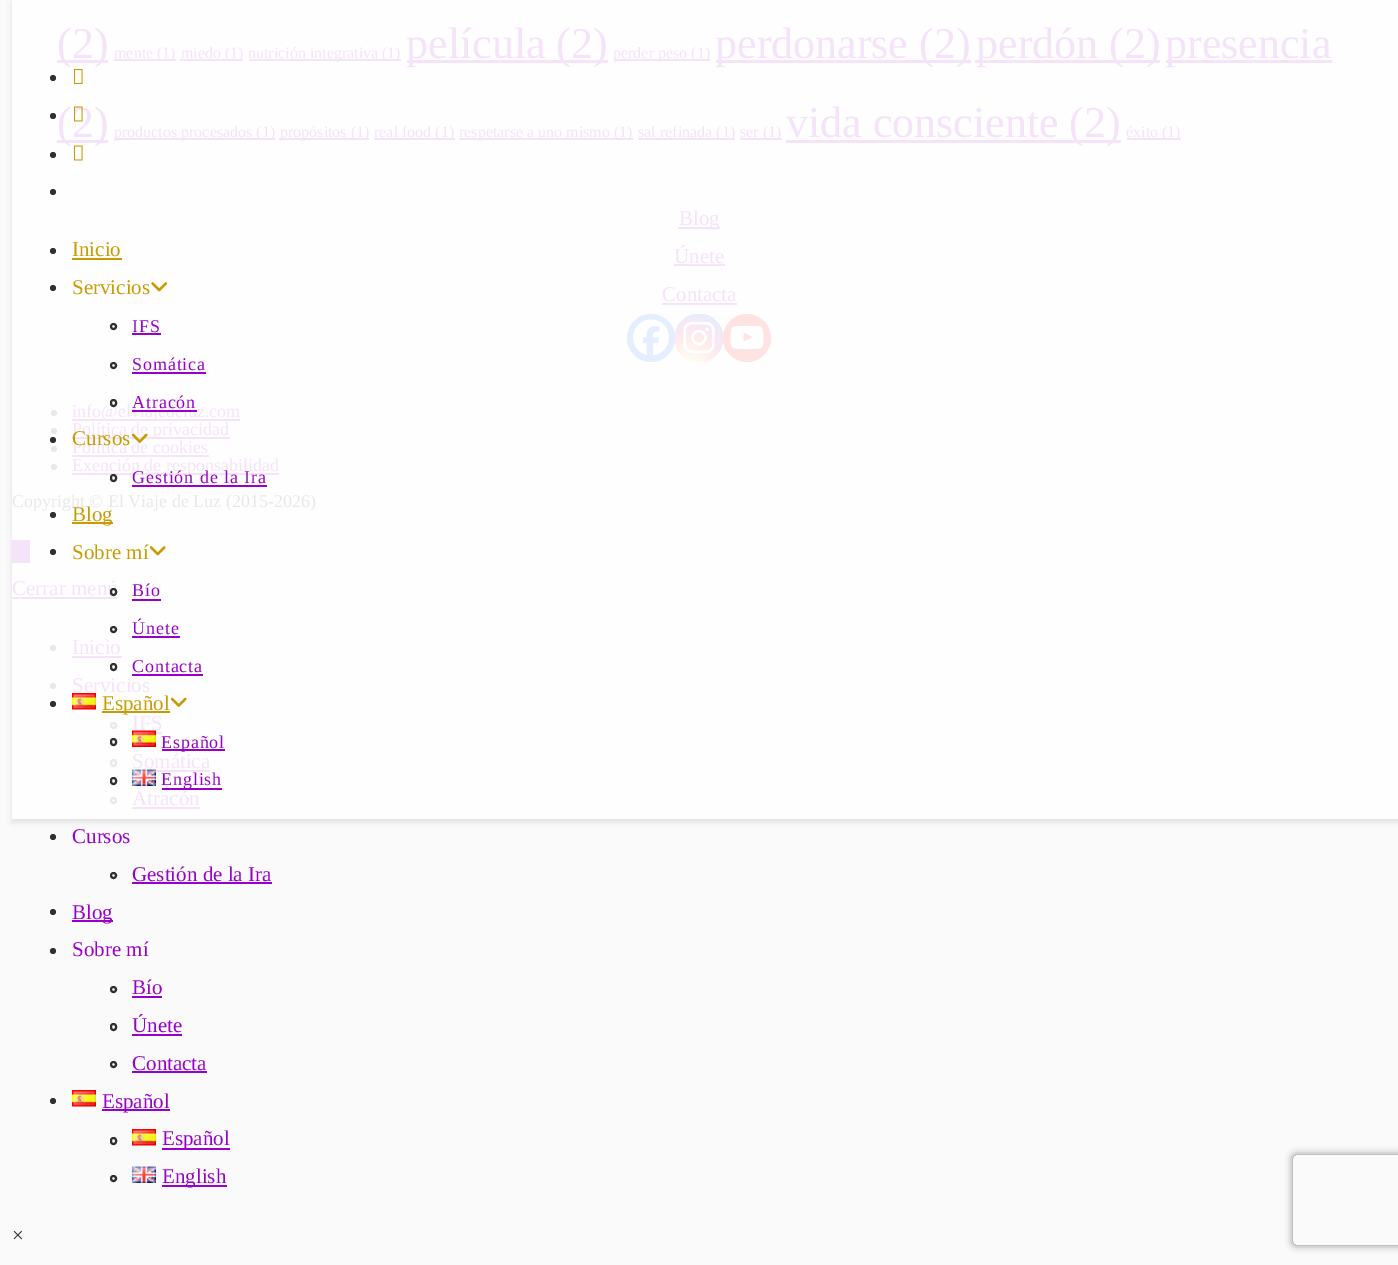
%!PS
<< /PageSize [1398 1265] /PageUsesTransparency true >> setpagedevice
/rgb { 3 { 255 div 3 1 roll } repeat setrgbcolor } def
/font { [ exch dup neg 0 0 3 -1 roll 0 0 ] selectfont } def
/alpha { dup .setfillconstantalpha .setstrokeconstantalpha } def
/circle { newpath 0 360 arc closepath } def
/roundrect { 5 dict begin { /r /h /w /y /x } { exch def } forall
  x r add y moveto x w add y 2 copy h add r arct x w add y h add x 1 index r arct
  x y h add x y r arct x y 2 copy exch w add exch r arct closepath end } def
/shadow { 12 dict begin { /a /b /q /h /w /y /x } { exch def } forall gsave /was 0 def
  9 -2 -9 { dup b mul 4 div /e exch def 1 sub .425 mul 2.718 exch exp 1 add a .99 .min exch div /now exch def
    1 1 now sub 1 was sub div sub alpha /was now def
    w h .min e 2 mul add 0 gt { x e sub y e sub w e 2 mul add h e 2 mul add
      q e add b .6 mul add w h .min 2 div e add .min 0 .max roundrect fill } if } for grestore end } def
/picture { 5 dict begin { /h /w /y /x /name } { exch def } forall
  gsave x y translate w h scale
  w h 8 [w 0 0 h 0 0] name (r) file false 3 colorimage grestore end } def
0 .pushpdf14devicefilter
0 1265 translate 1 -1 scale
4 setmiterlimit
250 250 250 rgb
0 0 1398 1265 rectfill
[
  [12 0 1386 819 254 254 254]
  [57 60 51 3 244 227 249]
  [114 59 62 2 244 227 249]
  [180 59 63 2 244 227 249]
  [249 59 129 2 244 227 249]
  [378 59 23 2 244 227 249]
  [407 60 201 3 244 227 249]
  [614 59 96 2 244 227 249]
  [716 60 255 3 244 227 249]
  [975 60 185 3 244 227 249]
  [1166 60 166 3 244 227 249]
  [57 140 51 3 244 227 249]
  [114 138 161 2 244 227 249]
  [279 138 90 2 244 227 249]
  [374 138 81 2 244 227 249]
  [459 138 150 2 244 227 249]
  [609 138 24 2 244 227 249]
  [638 138 97 2 244 227 249]
  [740 138 42 2 244 227 249]
  [786 140 335 3 244 227 249]
  [1127 138 54 2 244 227 249]
  [678 227 42 2 244 227 249]
  [674 264 51 2 244 227 249]
  [662 303 75 2 244 227 249]
] { aload pop rgb rectfill } forall
228 238 255 rgb
651 338 24 circle fill
(img/1.rgb) 633 319 36 37 picture
gsave 699 338 24 circle clip newpath 689 365 translate 61 61 scale
<< /ShadingType 3 /ColorSpace /DeviceRGB /Coords [0 0 0 0 0 1] /Extend [true true] /Function << /FunctionType 3 /Domain [0 1] /Functions [<< /FunctionType 2 /Domain [0 1] /C0 [1 0.996 0.957] /C1 [1 0.996 0.957] /N 1 >> << /FunctionType 2 /Domain [0 1] /C0 [1 0.996 0.957] /C1 [1 0.929 0.922] /N 1 >> << /FunctionType 2 /Domain [0 1] /C0 [1 0.929 0.922] /C1 [0.98 0.906 0.957] /N 1 >> << /FunctionType 2 /Domain [0 1] /C0 [0.98 0.906 0.957] /C1 [0.906 0.929 0.992] /N 1 >> << /FunctionType 2 /Domain [0 1] /C0 [0.906 0.929 0.992] /C1 [0.906 0.929 0.992] /N 1 >>] /Bounds [0.05 0.45 0.6 0.9] /Encode [0 1 0 1 0 1 0 1 0 1] >> >> shfill grestore
(img/2.rgb) 683 321 32 33 picture
255 227 227 rgb
747 338 24 circle fill
(img/3.rgb) 730 325 34 25 picture
232 232 232 rgb
54 413 3 circle fill
244 227 249 rgb
72 419 168 2 rectfill
232 232 232 rgb
54 431 3 circle fill
244 227 249 rgb
72 437 158 2 rectfill
232 232 232 rgb
54 449 3 circle fill
244 227 249 rgb
72 455 137 2 rectfill
232 232 232 rgb
54 467 3 circle fill
[
  [72 473 207 2 244 227 249]
  [12 540 18 23 244 227 249]
  [12 597 105 2 244 227 249]
] { aload pop rgb rectfill } forall
232 232 232 rgb
53 648 3 circle fill
244 227 249 rgb
72 656 50 2 rectfill
232 232 232 rgb
53 686 3 circle fill
2 setlinewidth
113.5 725.5 2.5 circle stroke
244 227 249 rgb
156 732 6 2 rectfill
232 232 232 rgb
111 760 5 6 2.5 roundrect stroke
244 227 249 rgb
156 770 54 2 rectfill
232 232 232 rgb
113.5 800.5 2.5 circle stroke
244 227 249 rgb
132 807 68 2 rectfill
gsave
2 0 moveto 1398 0 lineto 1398 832 lineto 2 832 lineto closepath 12 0 moveto 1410 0 lineto 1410 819 lineto 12 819 lineto closepath eoclip newpath
0 0 0 rgb
12 3 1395 819 0 3 0.1 shadow
grestore
48 48 48 rgb
53 78 3 circle fill
(img/4.rgb) 73 69 10 15 picture
53 116 3 circle fill
53 155 3 circle fill
53 192 3 circle fill
53 251 3 circle fill
201 155 2 rgb
72 258 50 2 rectfill
48 48 48 rgb
53 288 3 circle fill
(img/7.rgb) 151 282 16 10 picture
113.5 326.5 2.5 circle stroke
153 0 204 rgb
132 333 29 2 rectfill
48 48 48 rgb
113.5 365.5 2.5 circle stroke
153 0 204 rgb
132 372 74 2 rectfill
48 48 48 rgb
53 440 3 circle fill
153 0 204 rgb
132 485 135 2 rectfill
48 48 48 rgb
53 515 3 circle fill
201 155 2 rgb
72 522 41 2 rectfill
48 48 48 rgb
53 552 3 circle fill
(img/9.rgb) 149 546 17 10 picture
153 0 204 rgb
132 599 29 2 rectfill
48 48 48 rgb
113.5 629.5 2.5 circle stroke
153 0 204 rgb
132 636 48 2 rectfill
48 48 48 rgb
111 664 5 6 2.5 roundrect stroke
153 0 204 rgb
132 674 71 2 rectfill
48 48 48 rgb
53 704 3 circle fill
(img/10.rgb) 72 693 24 17 picture
201 155 2 rgb
102 711 68 2 rectfill
(img/11.rgb) 170 697 17 10 picture
48 48 48 rgb
111 739 5 6 2.5 roundrect stroke
153 0 204 rgb
162 749 63 2 rectfill
48 48 48 rgb
111 778 5 6 2.5 roundrect stroke
(img/13.rgb) 132 769 24 17 picture
153 0 204 rgb
162 788 60 2 rectfill
48 48 48 rgb
53 837 3 circle fill
113.5 875.5 2.5 circle stroke
153 0 204 rgb
132 882 140 2 rectfill
48 48 48 rgb
53 912 3 circle fill
153 0 204 rgb
72 920 41 2 rectfill
48 48 48 rgb
53 951 3 circle fill
113.5 989.5 2.5 circle stroke
153 0 204 rgb
132 996 30 2 rectfill
48 48 48 rgb
111 1024 5 6 2.5 roundrect stroke
153 0 204 rgb
132 1034 50 2 rectfill
48 48 48 rgb
113.5 1064.5 2.5 circle stroke
153 0 204 rgb
132 1071 75 2 rectfill
48 48 48 rgb
53 1101 3 circle fill
(img/14.rgb) 72 1090 24 17 picture
153 0 204 rgb
102 1109 68 2 rectfill
48 48 48 rgb
111 1138 5 6 2.5 roundrect stroke
(img/14.rgb) 132 1129 24 17 picture
153 0 204 rgb
162 1148 68 2 rectfill
48 48 48 rgb
113.5 1178.5 2.5 circle stroke
(img/15.rgb) 132 1166 24 17 picture
153 0 204 rgb
162 1185 65 2 rectfill
gsave
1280 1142 moveto 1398 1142 lineto 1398 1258 lineto 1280 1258 lineto closepath 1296 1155 moveto 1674 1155 lineto 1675.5 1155 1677 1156.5 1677 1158 curveto 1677 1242 lineto 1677 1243.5 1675.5 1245 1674 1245 curveto 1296 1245 lineto 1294.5 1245 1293 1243.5 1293 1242 curveto 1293 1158 lineto 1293 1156.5 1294.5 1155 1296 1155 curveto closepath eoclip newpath
128 128 128 rgb
1293 1155 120 90 3 4 1 shadow
grestore
/LiberationSerif-Regular 44 font
244 227 249 rgb
57 58 moveto (\(2\)) show
/LiberationSerif-Regular 16 font
[
  [(mente \(1\)) 114 58]
  [(miedo \(1\)) 181 58]
  [(nutrición integrativa) 248 58]
  [(\(1\)) 382 58]
] { aload pop moveto show } forall
/LiberationSerif-Regular 44 font
406 58 moveto (película \(2\)) show
/LiberationSerif-Regular 16 font
613 58 moveto (perder peso \(1\)) show
/LiberationSerif-Regular 44 font
[
  [(perdonarse \(2\)) 715 58]
  [(perdón \(2\)) 976 58]
  [(presencia) 1165 58]
  [(\(2\)) 57 137]
] { aload pop moveto show } forall
/LiberationSerif-Regular 16 font
[
  [(productos procesados \(1\)) 114 137]
  [(propósitos \(1\)) 280 137]
  [(real food \(1\)) 374 137]
  [(respetarse a uno mismo) 459 137]
  [(\(1\)) 614 137]
  [(sal refinada \(1\)) 638 137]
  [(ser \(1\)) 740 137]
] { aload pop moveto show } forall
/LiberationSerif-Regular 44 font
786 137 moveto (vida consciente \(2\)) show
/LiberationSerif-Regular 16 font
1126 137 moveto (éxito \(1\)) show
/LiberationSerif-Regular 21 font
[
  [(Blog) 679 225]
  [(Únete) 674 263]
  [(Contacta) 662 301]
] { aload pop moveto show } forall
/LiberationSerif-Regular 18 font
[
  [(info@elviajedeluz.com) 72 417]
  [(Política de privacidad) 72 435]
  [(Política de cookies) 72 453]
  [(Exención de responsabilidad) 72 471]
] { aload pop moveto show } forall
232 232 232 rgb
12 507 moveto (Copyright © El Viaje de Luz \(2015-2026\)) show
(img/5.rgb) 73 106 10 16 picture
(img/6.rgb) 73 145 10 16 picture
/LiberationSerif-Regular 21 font
201 155 2 rgb
72 256 moveto (Inicio) show
72 294 moveto (Servicios) show
/LiberationSerif-Regular 18 font
153 0 204 rgb
132 332 moveto 0.9 0 (IFS) ashow
132 370 moveto 0.9 0 (Somática) ashow
48 48 48 rgb
111 400 5 6 2.5 roundrect stroke
153 0 204 rgb
132 408 moveto 0.9 0 (Atracón) ashow
132 410 65 2 rectfill
/LiberationSerif-Regular 21 font
201 155 2 rgb
72 445 moveto (Cursos) show
(img/8.rgb) 131 433 17 10 picture
48 48 48 rgb
111 475 5 6 2.5 roundrect stroke
/LiberationSerif-Regular 18 font
153 0 204 rgb
132 483 moveto 0.9 0 (Gestión de la Ira) ashow
/LiberationSerif-Regular 21 font
201 155 2 rgb
72 521 moveto (Blog) show
72 559 moveto (Sobre mí) show
/LiberationSerif-Regular 18 font
153 0 204 rgb
132 596 moveto 0.9 0 (Bío) ashow
132 634 moveto 0.9 0 (Únete) ashow
132 672 moveto 0.9 0 (Contacta) ashow
/LiberationSerif-Regular 21 font
201 155 2 rgb
102 710 moveto (Español) show
/LiberationSerif-Regular 18 font
153 0 204 rgb
161 748 moveto 0.9 0 (Español) ashow
161 785 moveto 0.9 0 (English) ashow
/LiberationSerif-Regular 21 font
244 227 249 rgb
12 595 moveto (Cerrar menú) show
48 48 48 rgb
111 589 5 6 2.5 roundrect stroke
244 227 249 rgb
[
  [(Inicio) 72 654]
  [(Servicios) 72 692]
  [(IFS) 132 730]
] { aload pop moveto show } forall
(img/12.rgb) 132 730 24 17 picture
132 768 moveto (Somática) show
132 805 moveto (Atracón) show
153 0 204 rgb
[
  [(Cursos) 72 843]
  [(Gestión de la Ira) 132 881]
  [(Blog) 72 919]
  [(Sobre mí) 72 956]
  [(Bío) 132 994]
  [(Únete) 132 1032]
  [(Contacta) 132 1070]
  [(Español) 102 1108]
  [(Español) 162 1145]
  [(English) 162 1183]
] { aload pop moveto show } forall
48 48 48 rgb
12 1242 moveto (×) show
.poppdf14devicefilter showpage
